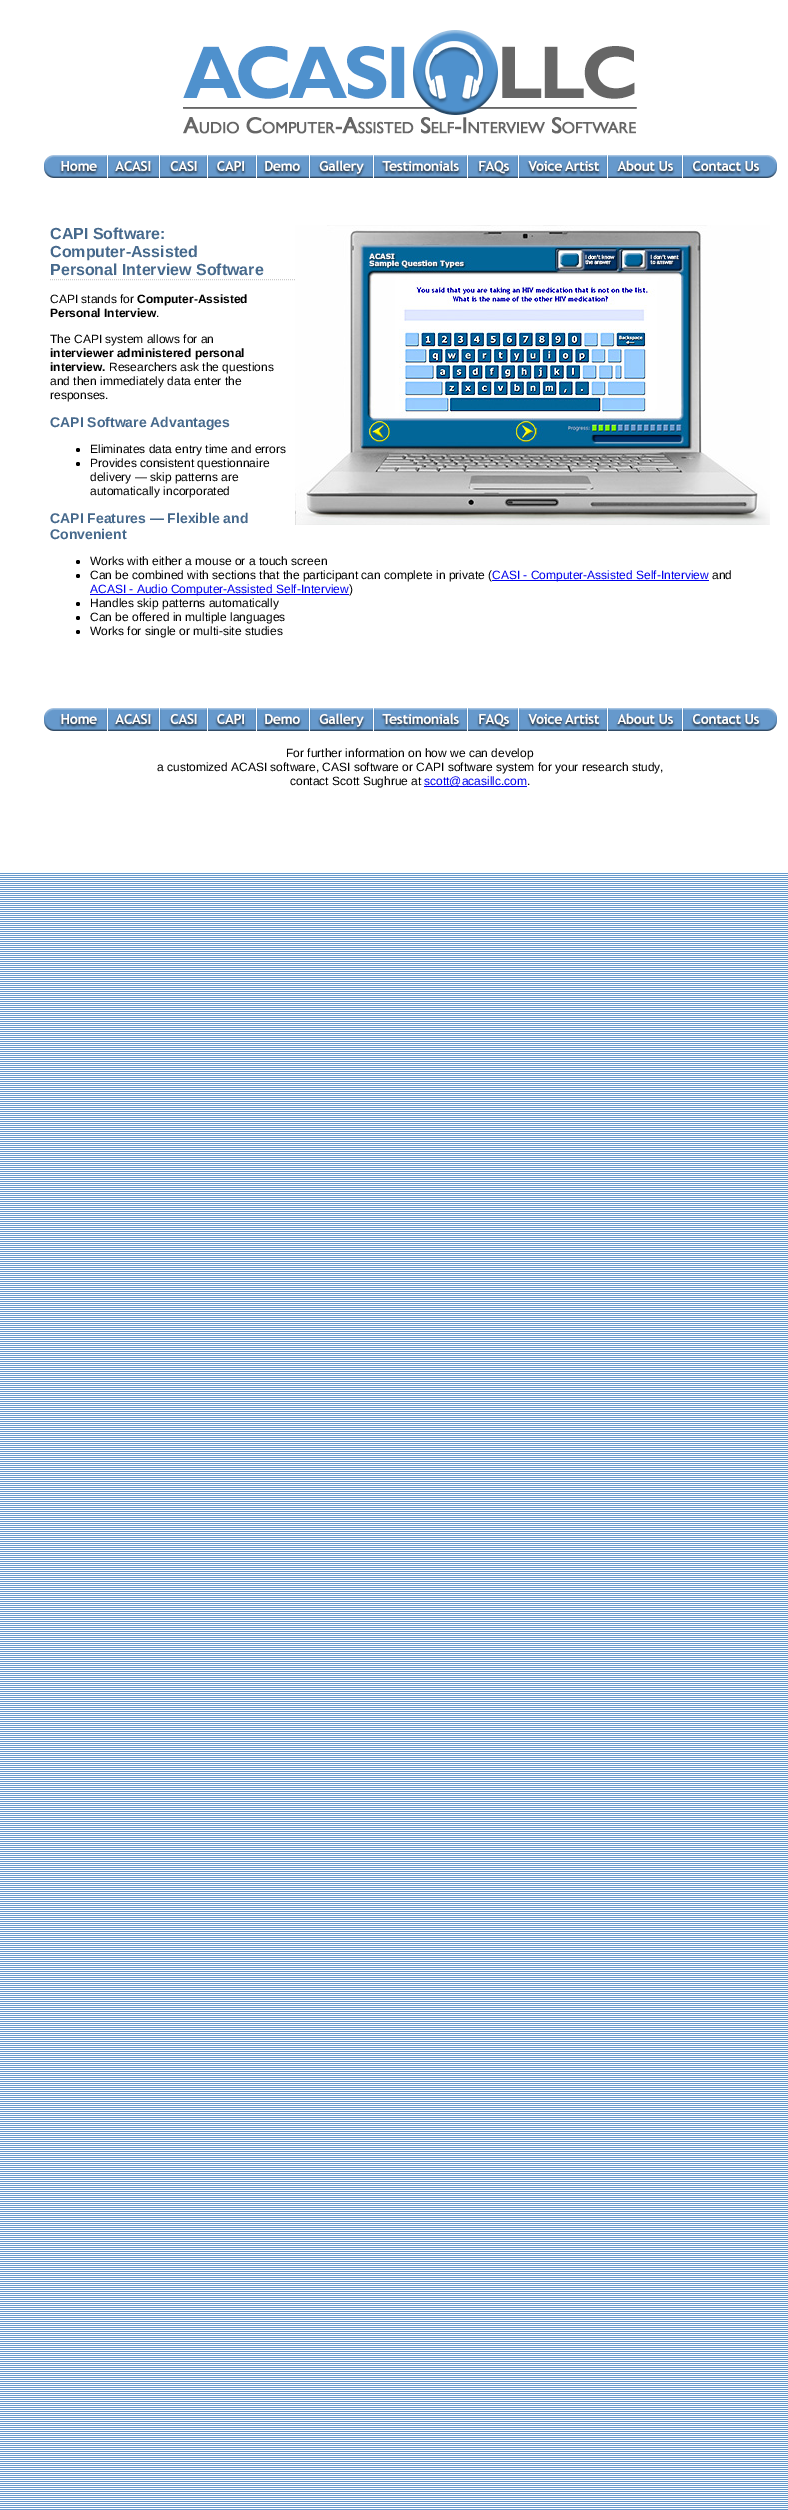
%!PS
<< /PageSize [788 2510] >> setpagedevice
/rgb { 3 { 255 div 3 1 roll } repeat setrgbcolor } def
/font { [ exch dup neg 0 0 3 -1 roll 0 0 ] selectfont } def
/circle { newpath 0 360 arc closepath } def
/picture { 5 dict begin { /h /w /y /x /name } { exch def } forall
  gsave x y translate w h scale
  w h 8 [w 0 0 h 0 0] name (r) file false 3 colorimage grestore end } def
0 2510 translate 1 -1 scale
4 setmiterlimit
255 255 255 rgb
0 0 788 2510 rectfill
(img/1.rgb) 0 872 788 1638 picture
(img/2.rgb) 183 30 454 104 picture
(img/3.rgb) 44 155 733 23 picture
204 204 204 rgb
[1 1] 0 setdash
50 279.5 moveto 770 279.5 lineto stroke
(img/4.rgb) 295 225 475 300 picture
0 0 0 rgb
78 450 2 circle fill
78 464 2 circle fill
78 562 2 circle fill
78 576 2 circle fill
0 0 238 rgb
90 594 259 1 rectfill
0 0 0 rgb
78 604 2 circle fill
78 618 2 circle fill
78 632 2 circle fill
(img/3.rgb) 44 708 733 23 picture
0 0 238 rgb
424 786 103 1 rectfill
/LiberationSans-Bold 16 font
70 105 140 rgb
[
  [(CAPI Software:) 50 239]
  [(Computer-Assisted) 50 257]
  [(Personal Interview Software) 50 275]
] { aload pop moveto show } forall
/LiberationSans-Regular 12 font
0 0 0 rgb
50 303 moveto (CAPI stands for) show
/LiberationSans-Bold 12 font
137 303 moveto (Computer-Assisted) show
50 317 moveto (Personal Interview) show
/LiberationSans-Regular 12 font
156 317 moveto (.) show
50 343 moveto (The CAPI system allows for an) show
/LiberationSans-Bold 12 font
50 357 moveto (interviewer administered personal) show
50 371 moveto (interview.) show
/LiberationSans-Regular 12 font
[
  [(Researchers ask the questions) 109 371]
  [(and then immediately data enter the) 50 385]
  [(responses.) 50 399]
] { aload pop moveto show } forall
/LiberationSans-Bold 14 font
70 105 140 rgb
50 427 moveto (CAPI Software Advantages) show
/LiberationSans-Regular 12 font
0 0 0 rgb
[
  [(Eliminates data entry time and errors) 90 453]
  [(Provides consistent questionnaire) 90 467]
  [(delivery — skip patterns are) 90 481]
  [(automatically incorporated) 90 495]
] { aload pop moveto show } forall
/LiberationSans-Bold 14 font
70 105 140 rgb
50 523 moveto (CAPI Features — Flexible and) show
50 539 moveto (Convenient) show
/LiberationSans-Regular 12 font
0 0 0 rgb
90 565 moveto (Works with either a mouse or a touch screen) show
90 579 moveto (Can be combined with sections that the participant can complete in private \() show
0 0 238 rgb
492 580 217 1 rectfill
492 579 moveto (CASI - Computer-Assisted Self-Interview) show
0 0 0 rgb
712 579 moveto (and) show
0 0 238 rgb
90 593 moveto (ACASI - Audio Computer-Assisted Self-Interview) show
0 0 0 rgb
[
  [(\)) 349 593]
  [(Handles skip patterns automatically) 90 607]
  [(Can be offered in multiple languages) 90 621]
  [(Works for single or multi-site studies) 90 635]
  [(For further information on how we can develop) 286 757]
  [(a customized ACASI software, CASI software or CAPI software system for your research study,) 157 771]
  [(contact Scott Sughrue at) 290 785]
] { aload pop moveto show } forall
0 0 238 rgb
424 785 moveto (scott@acasillc.com) show
0 0 0 rgb
527 785 moveto (.) show
showpage
